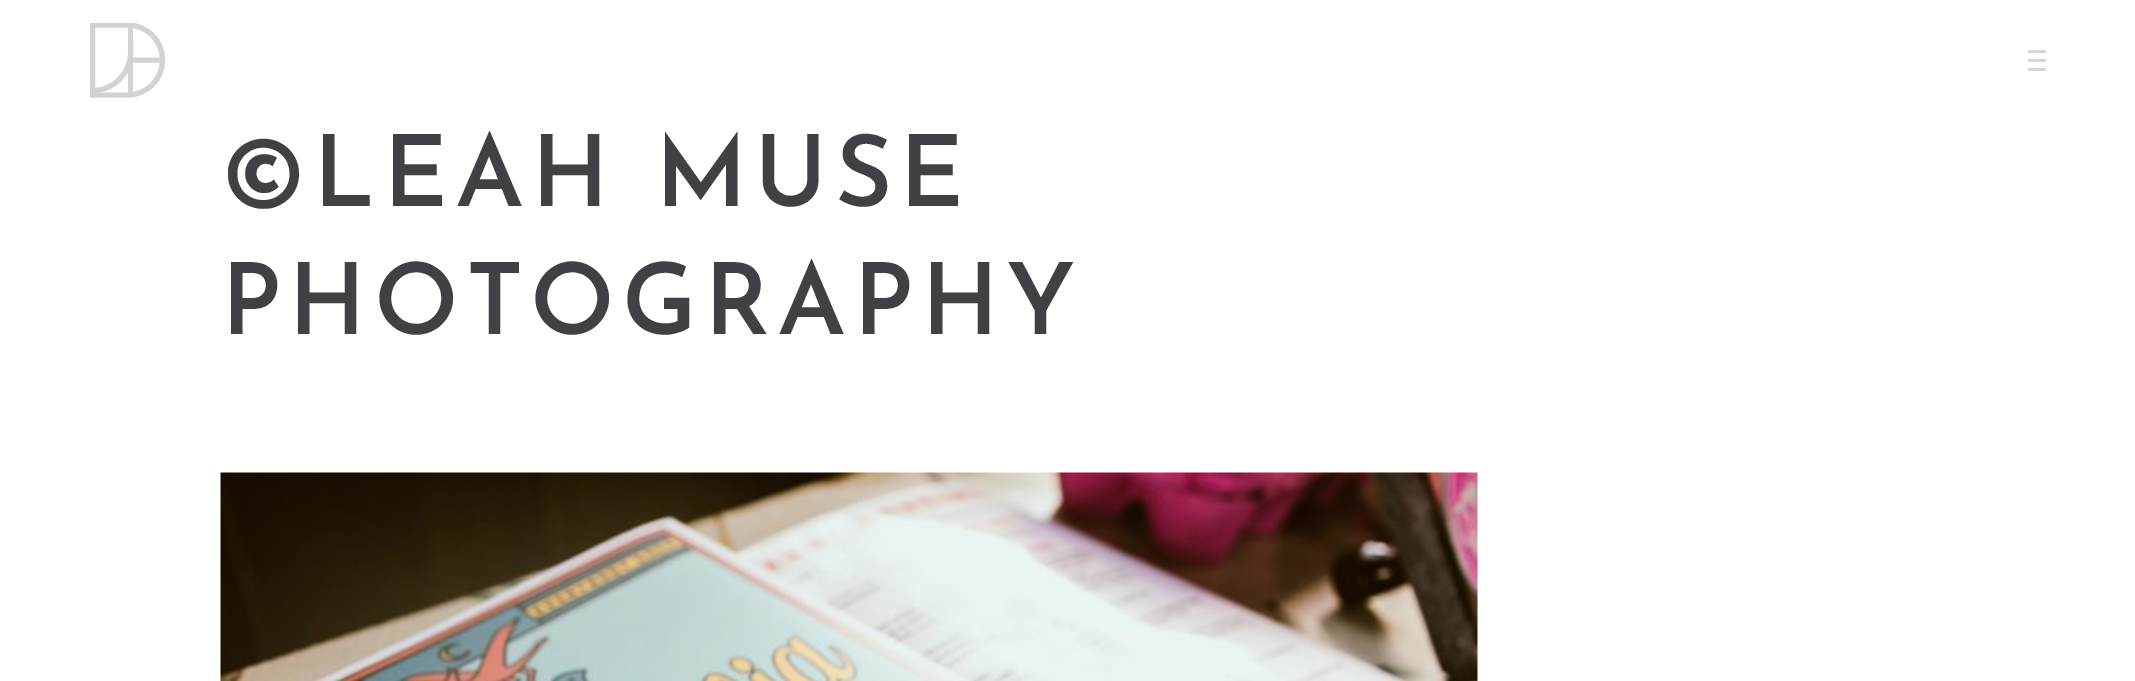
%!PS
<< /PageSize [2135 681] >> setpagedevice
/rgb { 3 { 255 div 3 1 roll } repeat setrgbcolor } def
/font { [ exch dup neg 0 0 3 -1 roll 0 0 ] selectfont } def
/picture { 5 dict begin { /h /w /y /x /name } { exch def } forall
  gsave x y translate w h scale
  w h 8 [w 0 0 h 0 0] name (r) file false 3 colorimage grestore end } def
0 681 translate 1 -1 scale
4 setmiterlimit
255 255 255 rgb
0 0 2135 681 rectfill
211 210 210 rgb
5.1 setlinewidth
130.5 38 moveto 130.5 53 lineto 130.5 73.5 113.5 90.5 93 90.5 curveto stroke
gsave
90 23 75 75 rectclip
92.5 25 moveto 127.5 25 lineto 147 25 162.5 40.5 162.5 60 curveto 162.5 79.5 147 95 127.5 95 curveto 92.5 95 lineto closepath stroke
grestore
128 25 5 70 rectfill
162.5 60 moveto 130.5 60 lineto stroke
[
  [2028 50 18 3 214 214 214]
  [2028 59 18 3 214 214 214]
  [2028 68 18 3 214 214 214]
] { aload pop rgb rectfill } forall
(img/1.rgb) 220 472 1258 209 picture
/JosefinSans-SemiBold 99 font
65 65 69 rgb
221 206 moveto 7 0 (©LEAH MUSE) ashow
221 334 moveto 7 0 (PHOTOGRAPHY) ashow
showpage
